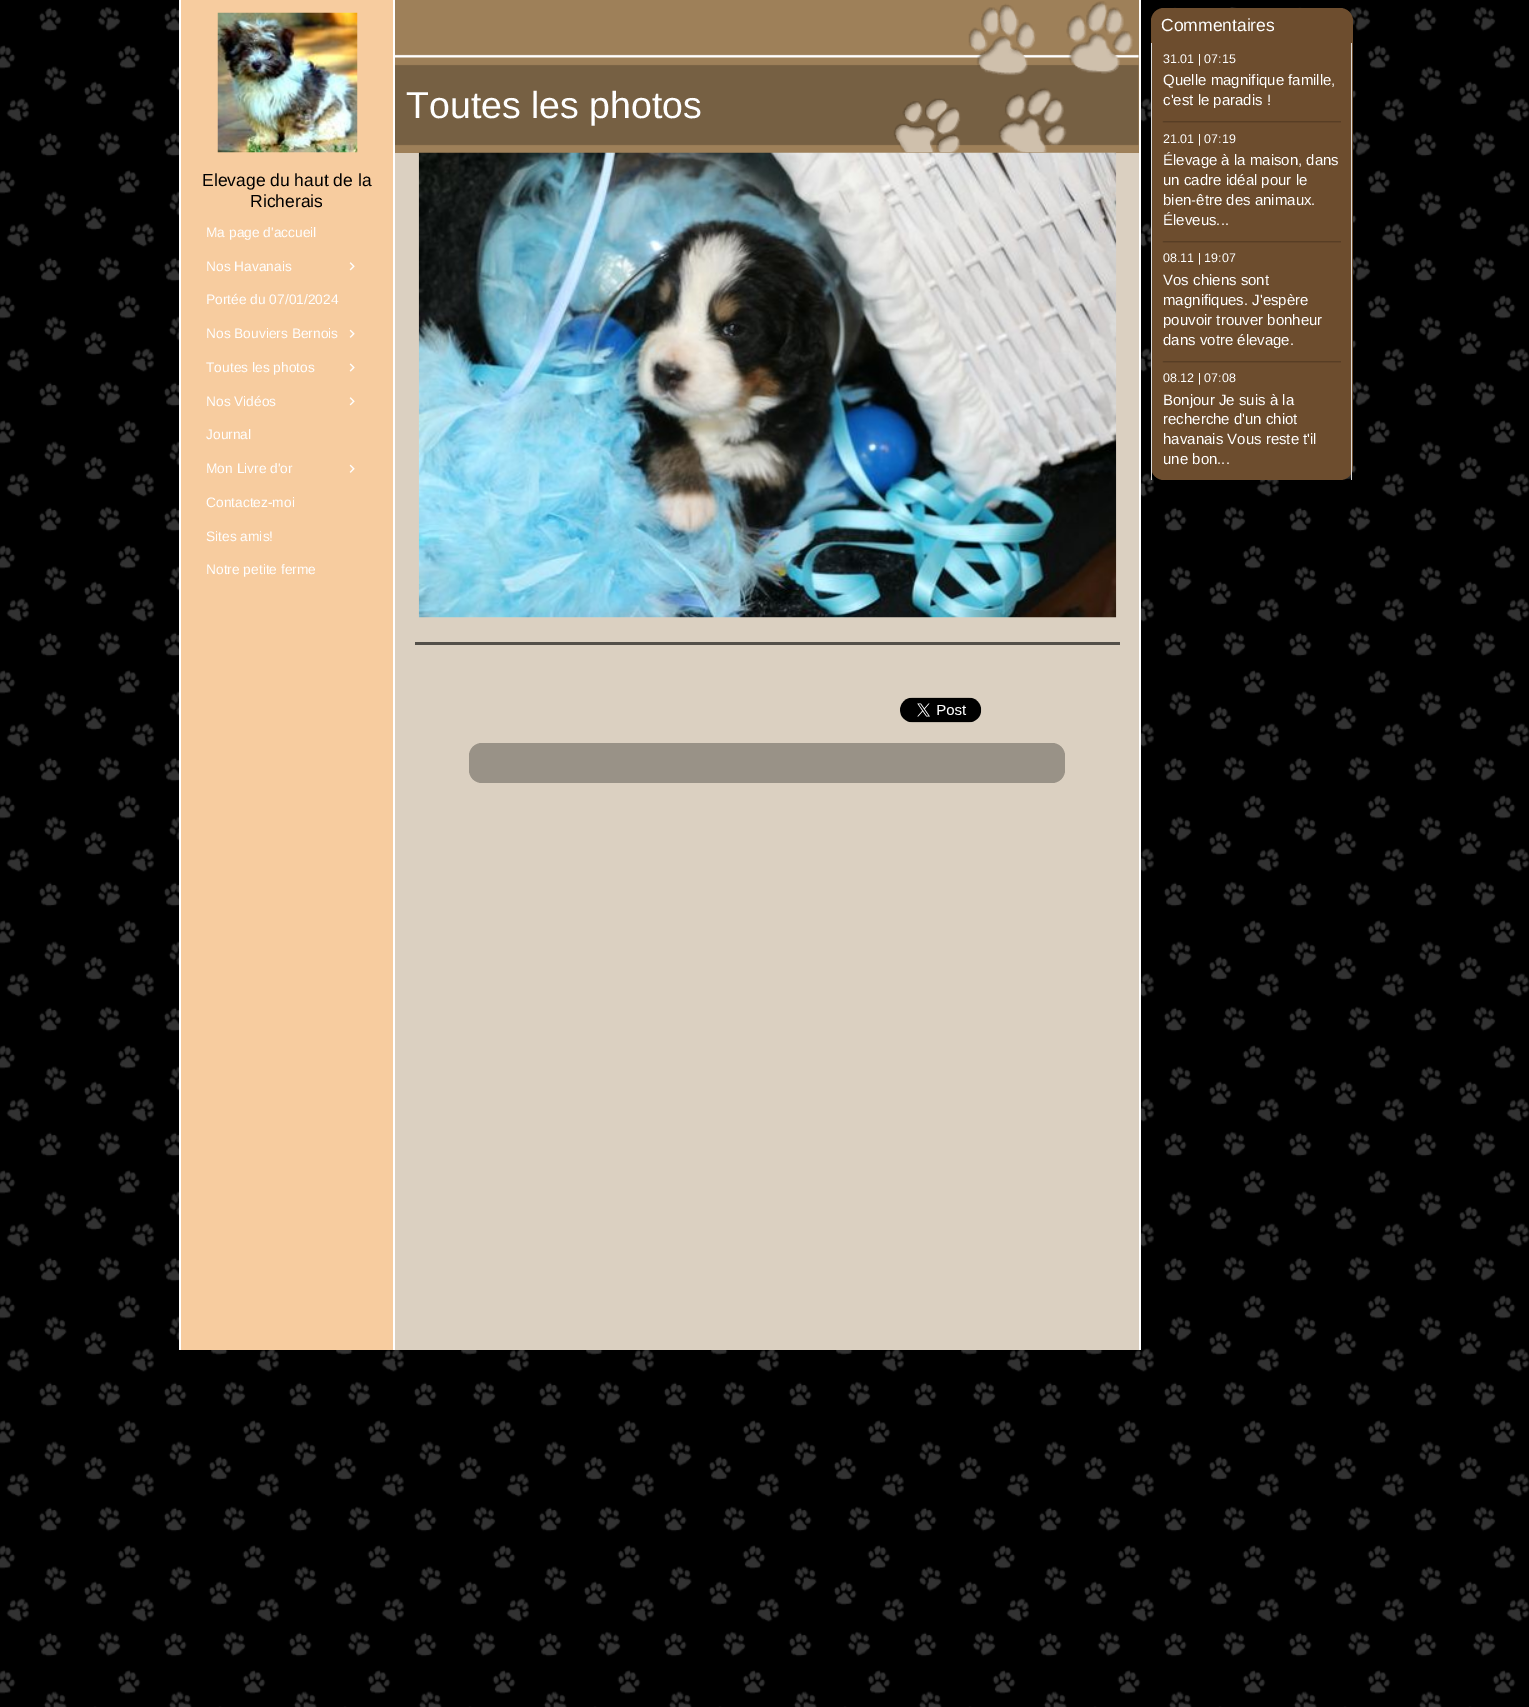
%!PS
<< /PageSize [1529 1707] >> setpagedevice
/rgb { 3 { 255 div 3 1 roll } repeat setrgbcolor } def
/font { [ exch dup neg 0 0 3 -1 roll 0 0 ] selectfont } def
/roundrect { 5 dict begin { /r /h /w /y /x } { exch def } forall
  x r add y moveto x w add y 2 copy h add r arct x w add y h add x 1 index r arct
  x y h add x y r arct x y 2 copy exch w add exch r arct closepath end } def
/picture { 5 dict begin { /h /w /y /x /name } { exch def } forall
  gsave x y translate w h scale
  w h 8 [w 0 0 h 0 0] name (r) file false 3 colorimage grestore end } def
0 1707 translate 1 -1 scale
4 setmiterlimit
0 0 0 rgb
0 0 1529 1707 rectfill
(img/1.rgb) 0 7 1529 1700 picture
[
  [179 0 962 1350 255 255 255]
  [395 153 744 1197 219 208 193]
  [395 0 744 153 158 128 89]
] { aload pop rgb rectfill } forall
(img/2.rgb) 395 1 744 152 picture
(img/3.rgb) 418 152 699 466 picture
83 79 73 rgb
415 642 705 3 rectfill
(img/4.rgb) 900 697 82 26 picture
153 146 135 rgb
469 743 596 40 13 roundrect fill
247 204 159 rgb
181 0 212 1350 rectfill
(img/5.rgb) 217 12 141 141 picture
109 77 46 rgb
1151 8 202 472 13 roundrect fill
218 218 218 rgb
1351 43 1 437 rectfill
1151 43 1 437 rectfill
(img/6.rgb) 1162 121 179 2 picture
(img/6.rgb) 1162 241 179 2 picture
(img/6.rgb) 1162 361 179 2 picture
(img/7.rgb) 349 262 6 9 picture
(img/8.rgb) 349 329 6 9 picture
(img/9.rgb) 349 363 6 9 picture
(img/7.rgb) 349 397 6 9 picture
(img/8.rgb) 349 464 6 9 picture
/LiberationSans-Regular 37.5 font
255 255 255 rgb
406 118 moveto (Toutes les photos) show
/LiberationSans-Regular 17.5 font
0 0 0 rgb
202 186 moveto (Elevage du haut de la) show
250 207 moveto (Richerais) show
255 255 255 rgb
1161 31 moveto (Commentaires) show
/LiberationSans-Regular 12.5 font
1163 63 moveto (31.01 | 07:15) show
/LiberationSans-Regular 15 font
1163 85 moveto (Quelle magnifique famille,) show
1163 105 moveto (c'est le paradis !) show
/LiberationSans-Regular 12.5 font
1163 143 moveto (21.01 | 07:19) show
/LiberationSans-Regular 15 font
[
  [(Élevage à la maison, dans) 1163 165]
  [(un cadre idéal pour le) 1163 185]
  [(bien-être des animaux.) 1163 205]
  [(Éleveus...) 1163 225]
] { aload pop moveto show } forall
/LiberationSans-Regular 12.5 font
1163 262 moveto (08.11 | 19:07) show
/LiberationSans-Regular 15 font
[
  [(Vos chiens sont) 1163 285]
  [(magnifiques. J'espère) 1163 305]
  [(pouvoir trouver bonheur) 1163 325]
  [(dans votre élevage.) 1163 345]
] { aload pop moveto show } forall
/LiberationSans-Regular 12.5 font
1163 382 moveto (08.12 | 07:08) show
/LiberationSans-Regular 15 font
[
  [(Bonjour Je suis à la) 1163 405]
  [(recherche d'un chiot) 1163 424]
  [(havanais Vous reste t'il) 1163 444]
  [(une bon...) 1163 464]
] { aload pop moveto show } forall
/LiberationSans-Regular 13.75 font
[
  [(Ma page d'accueil) 206 237]
  [(Nos Havanais) 206 271]
  [(Portée du 07/01/2024) 206 304]
  [(Nos Bouviers Bernois) 206 338]
  [(Toutes les photos) 206 372]
  [(Nos Vidéos) 206 406]
  [(Journal) 206 439]
  [(Mon Livre d'or) 206 473]
  [(Contactez-moi) 206 507]
  [(Sites amis!) 206 541]
  [(Notre petite ferme) 206 574]
] { aload pop moveto show } forall
showpage
